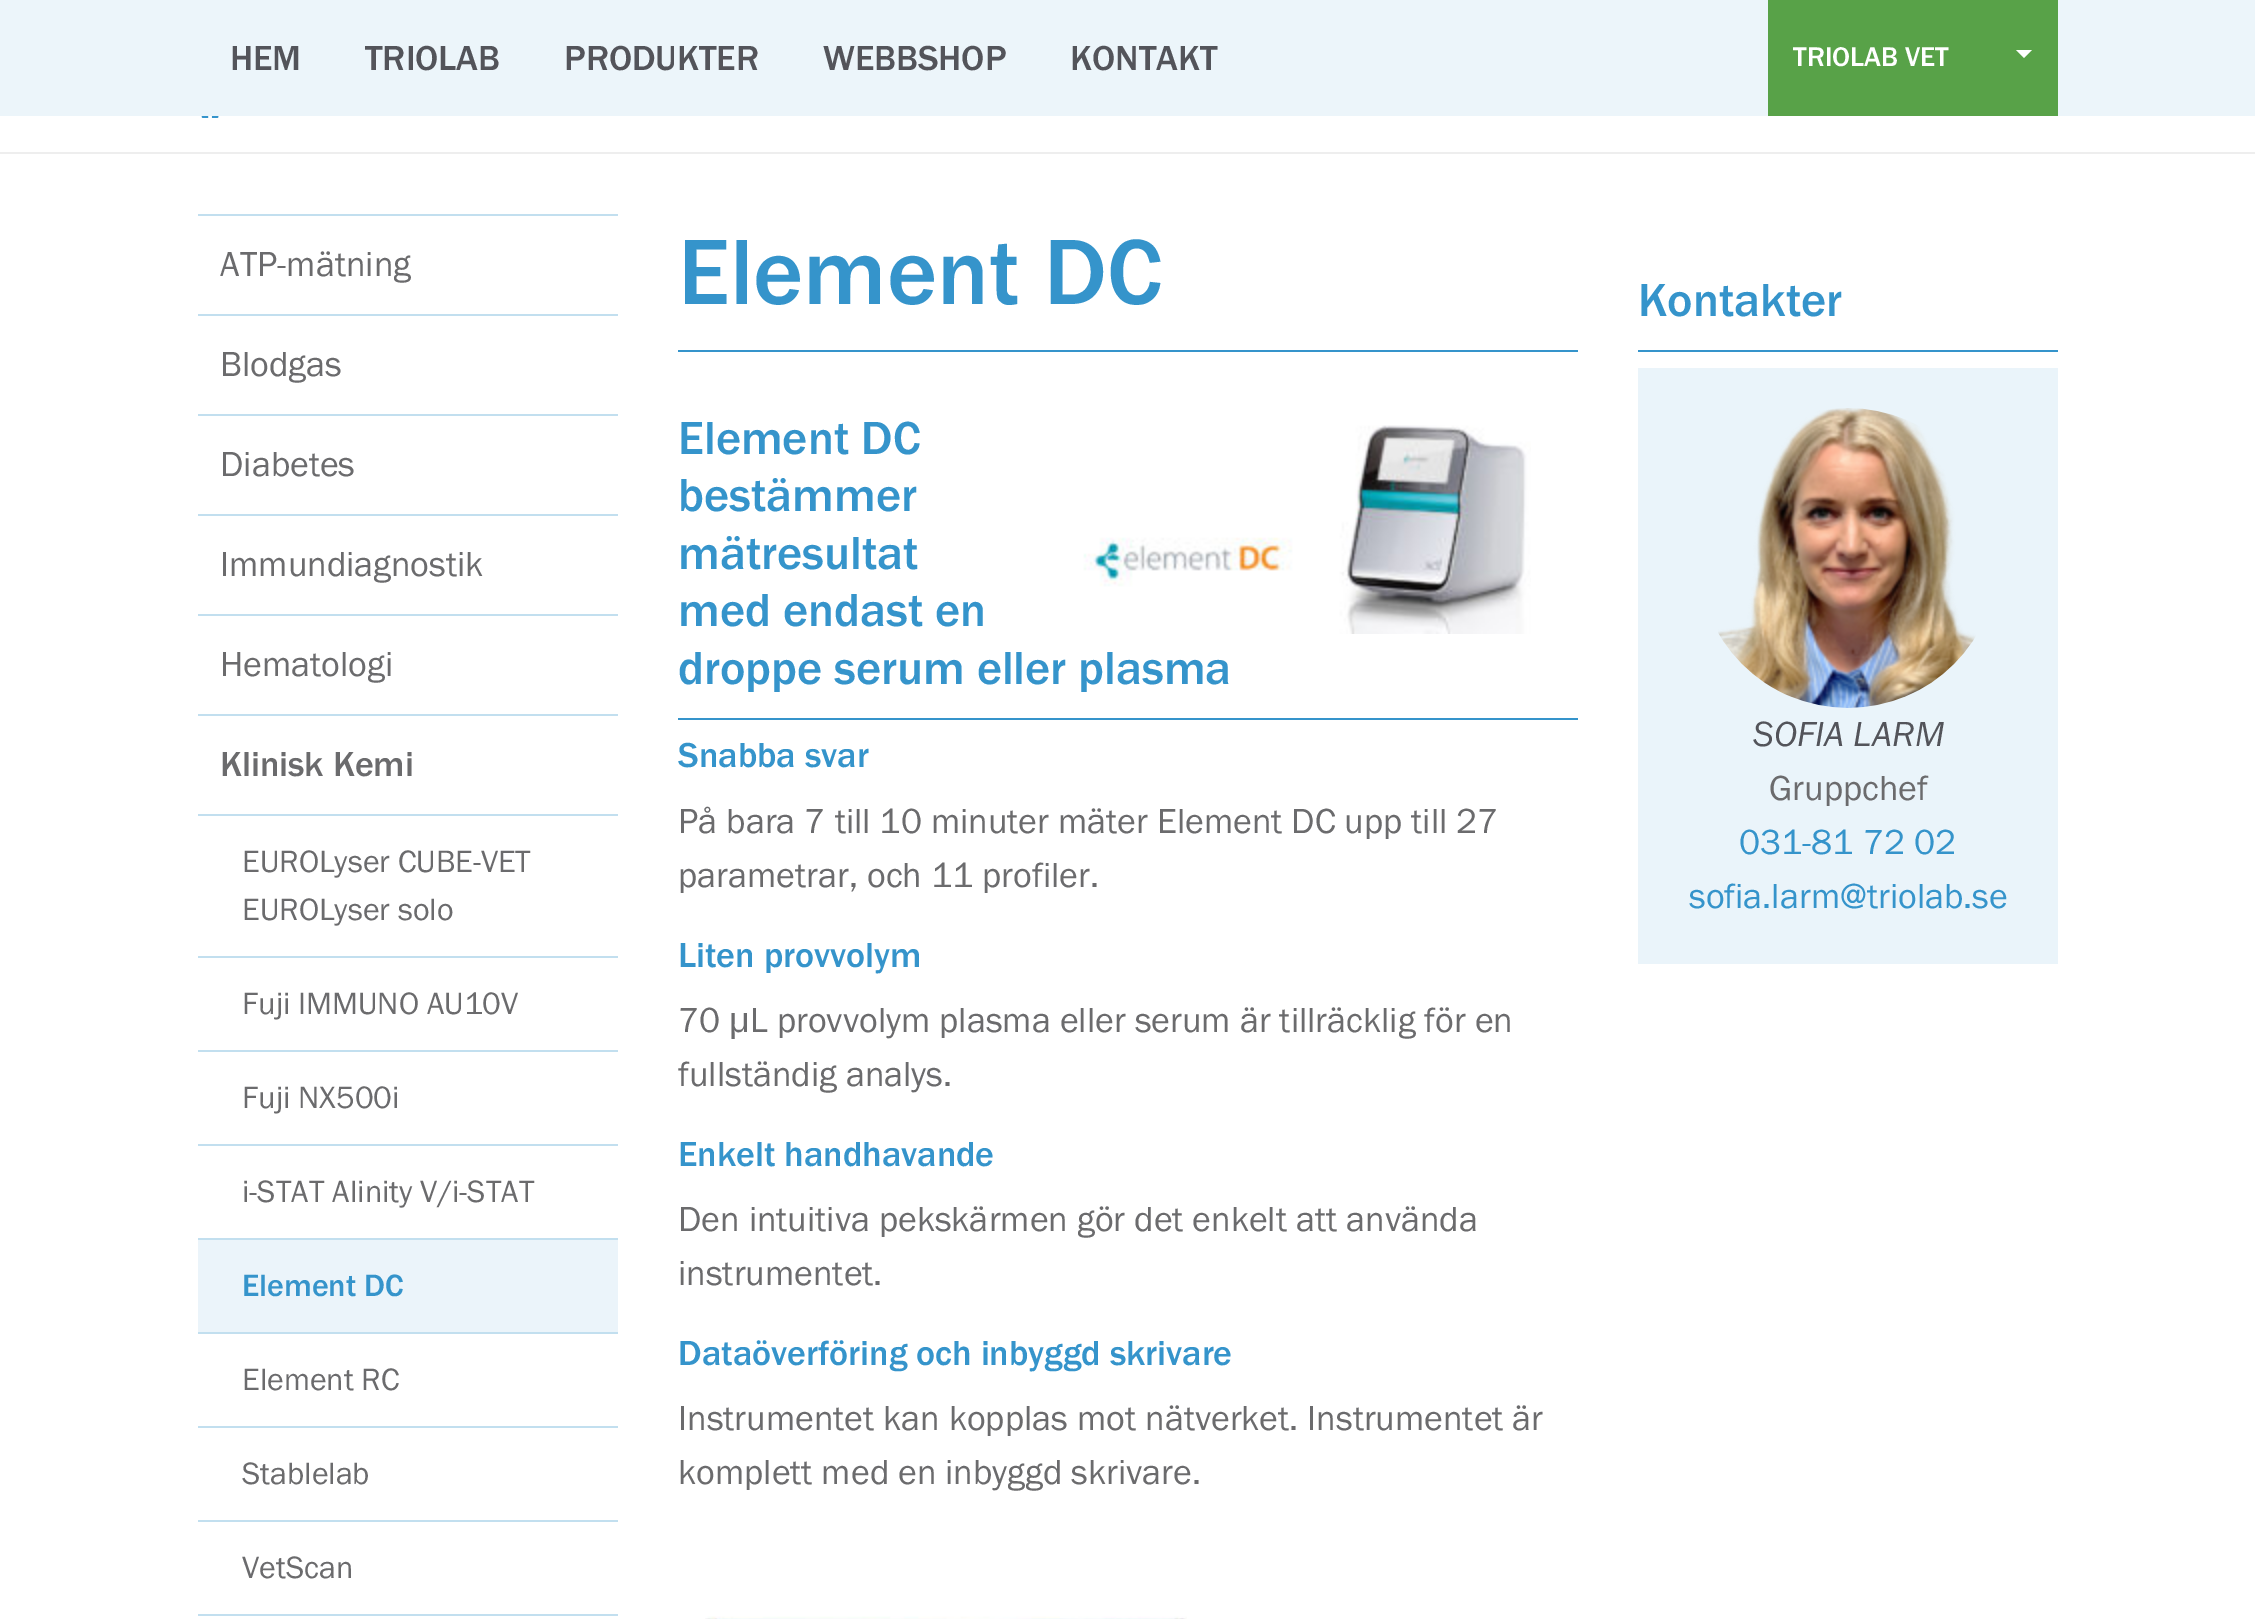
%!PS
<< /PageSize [2255 1619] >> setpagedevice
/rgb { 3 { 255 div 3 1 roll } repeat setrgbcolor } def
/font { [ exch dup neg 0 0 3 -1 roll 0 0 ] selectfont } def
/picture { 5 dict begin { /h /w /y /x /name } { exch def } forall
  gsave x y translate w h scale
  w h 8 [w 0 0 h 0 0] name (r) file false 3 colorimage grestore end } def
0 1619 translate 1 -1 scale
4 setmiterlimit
255 255 255 rgb
0 0 2255 1619 rectfill
236 245 250 rgb
0 0 2255 116 rectfill
88 162 72 rgb
1768 0 290 116 rectfill
255 255 255 rgb
2016 50 moveto 2032 50 lineto 2024 58 lineto closepath fill
238 238 238 rgb
0 152 2255 2 rectfill
(img/1.rgb) 201 116 18 2 picture
[
  [198 214 420 2 194 223 239]
  [198 314 420 2 194 223 239]
  [198 414 420 2 194 223 239]
  [198 514 420 2 194 223 239]
  [198 614 420 2 194 223 239]
  [198 714 420 2 194 223 239]
  [198 814 420 2 194 223 239]
  [198 956 420 2 194 223 239]
  [198 1050 420 2 194 223 239]
  [198 1144 420 2 194 223 239]
  [198 1238 420 2 194 223 239]
  [198 1240 420 92 235 244 250]
  [198 1332 420 2 194 223 239]
  [198 1426 420 2 194 223 239]
  [198 1520 420 2 194 223 239]
  [198 1614 420 2 194 223 239]
  [678 350 900 2 53 148 203]
  [678 718 900 2 53 148 203]
] { aload pop rgb rectfill } forall
(img/2.rgb) 1083 425 448 209 picture
(img/3.rgb) 705 1616 482 3 picture
1638 350 420 2 rectfill
234 244 250 rgb
1638 368 420 596 rectfill
(img/4.rgb) 1718 408 258 300 picture
/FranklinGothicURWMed-Regular 36 font
83 84 90 rgb
[
  [(HEM) 230 70]
  [(TRIOLAB) 365 70]
  [(PRODUKTER) 564 70]
  [(WEBBSHOP) 823 70]
  [(KONTAKT) 1070 70]
] { aload pop moveto show } forall
/FranklinGothicURWMed-Regular 28 font
255 255 255 rgb
1793 66 moveto (TRIOLAB VET) show
/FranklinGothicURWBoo-Regular 36 font
107 107 109 rgb
[
  [(ATP-mätning) 220 276]
  [(Blodgas) 220 376]
  [(Diabetes) 220 476]
  [(Immundiagnostik) 220 576]
  [(Hematologi) 220 676]
] { aload pop moveto show } forall
/FranklinGothicURWMed-Regular 36 font
220 776 moveto (Klinisk Kemi) show
/FranklinGothicURWBoo-Regular 32 font
[
  [(EUROLyser CUBE-VET) 242 872]
  [(EUROLyser solo) 242 920]
  [(Fuji IMMUNO AU10V) 242 1014]
  [(Fuji NX500i) 242 1108]
  [(i-STAT Alinity V/i-STAT) 242 1202]
] { aload pop moveto show } forall
/FranklinGothicURWMed-Regular 32 font
53 148 203 rgb
242 1296 moveto (Element DC) show
/FranklinGothicURWBoo-Regular 32 font
107 107 109 rgb
[
  [(Element RC) 242 1390]
  [(Stablelab) 242 1484]
  [(VetScan) 242 1578]
] { aload pop moveto show } forall
/FranklinGothicURWMed-Regular 96 font
53 148 203 rgb
678 304 moveto (Element DC) show
/FranklinGothicURWMed-Regular 48 font
[
  [(Element DC) 678 454]
  [(bestämmer) 678 511]
  [(mätresultat) 678 569]
  [(med endast en) 678 626]
  [(droppe serum eller plasma) 678 684]
] { aload pop moveto show } forall
/FranklinGothicURWMed-Regular 36 font
678 767 moveto (Snabba svar) show
/FranklinGothicURWBoo-Regular 36 font
107 107 109 rgb
678 833 moveto (På bara 7 till 10 minuter mäter Element DC upp till 27) show
678 887 moveto (parametrar, och 11 profiler.) show
/FranklinGothicURWMed-Regular 36 font
53 148 203 rgb
678 967 moveto (Liten provvolym) show
/FranklinGothicURWBoo-Regular 36 font
107 107 109 rgb
678 1032 moveto (70) show
/LiberationSans-Regular 36 font
729 1032 moveto (μ) show
/FranklinGothicURWBoo-Regular 36 font
750 1032 moveto (L provvolym plasma eller serum är tillräcklig för en) show
678 1086 moveto (fullständig analys.) show
/FranklinGothicURWMed-Regular 36 font
53 148 203 rgb
678 1166 moveto (Enkelt handhavande) show
/FranklinGothicURWBoo-Regular 36 font
107 107 109 rgb
678 1231 moveto (Den intuitiva pekskärmen gör det enkelt att använda) show
678 1285 moveto (instrumentet.) show
/FranklinGothicURWMed-Regular 36 font
53 148 203 rgb
678 1365 moveto (Dataöverföring och inbyggd skrivare) show
/FranklinGothicURWBoo-Regular 36 font
107 107 109 rgb
678 1430 moveto (Instrumentet kan kopplas mot nätverket. Instrumentet är) show
678 1484 moveto (komplett med en inbyggd skrivare.) show
/FranklinGothicURWMed-Regular 48 font
53 148 203 rgb
1638 316 moveto (Kontakter) show
/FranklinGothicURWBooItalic-Italic 36 font
83 84 90 rgb
1753 746 moveto (SOFIA LARM) show
/FranklinGothicURWBoo-Regular 36 font
107 107 109 rgb
1769 800 moveto (Gruppchef) show
53 148 203 rgb
1739 854 moveto (031-81 72 02) show
1689 908 moveto (sofia.larm@triolab.se) show
showpage
